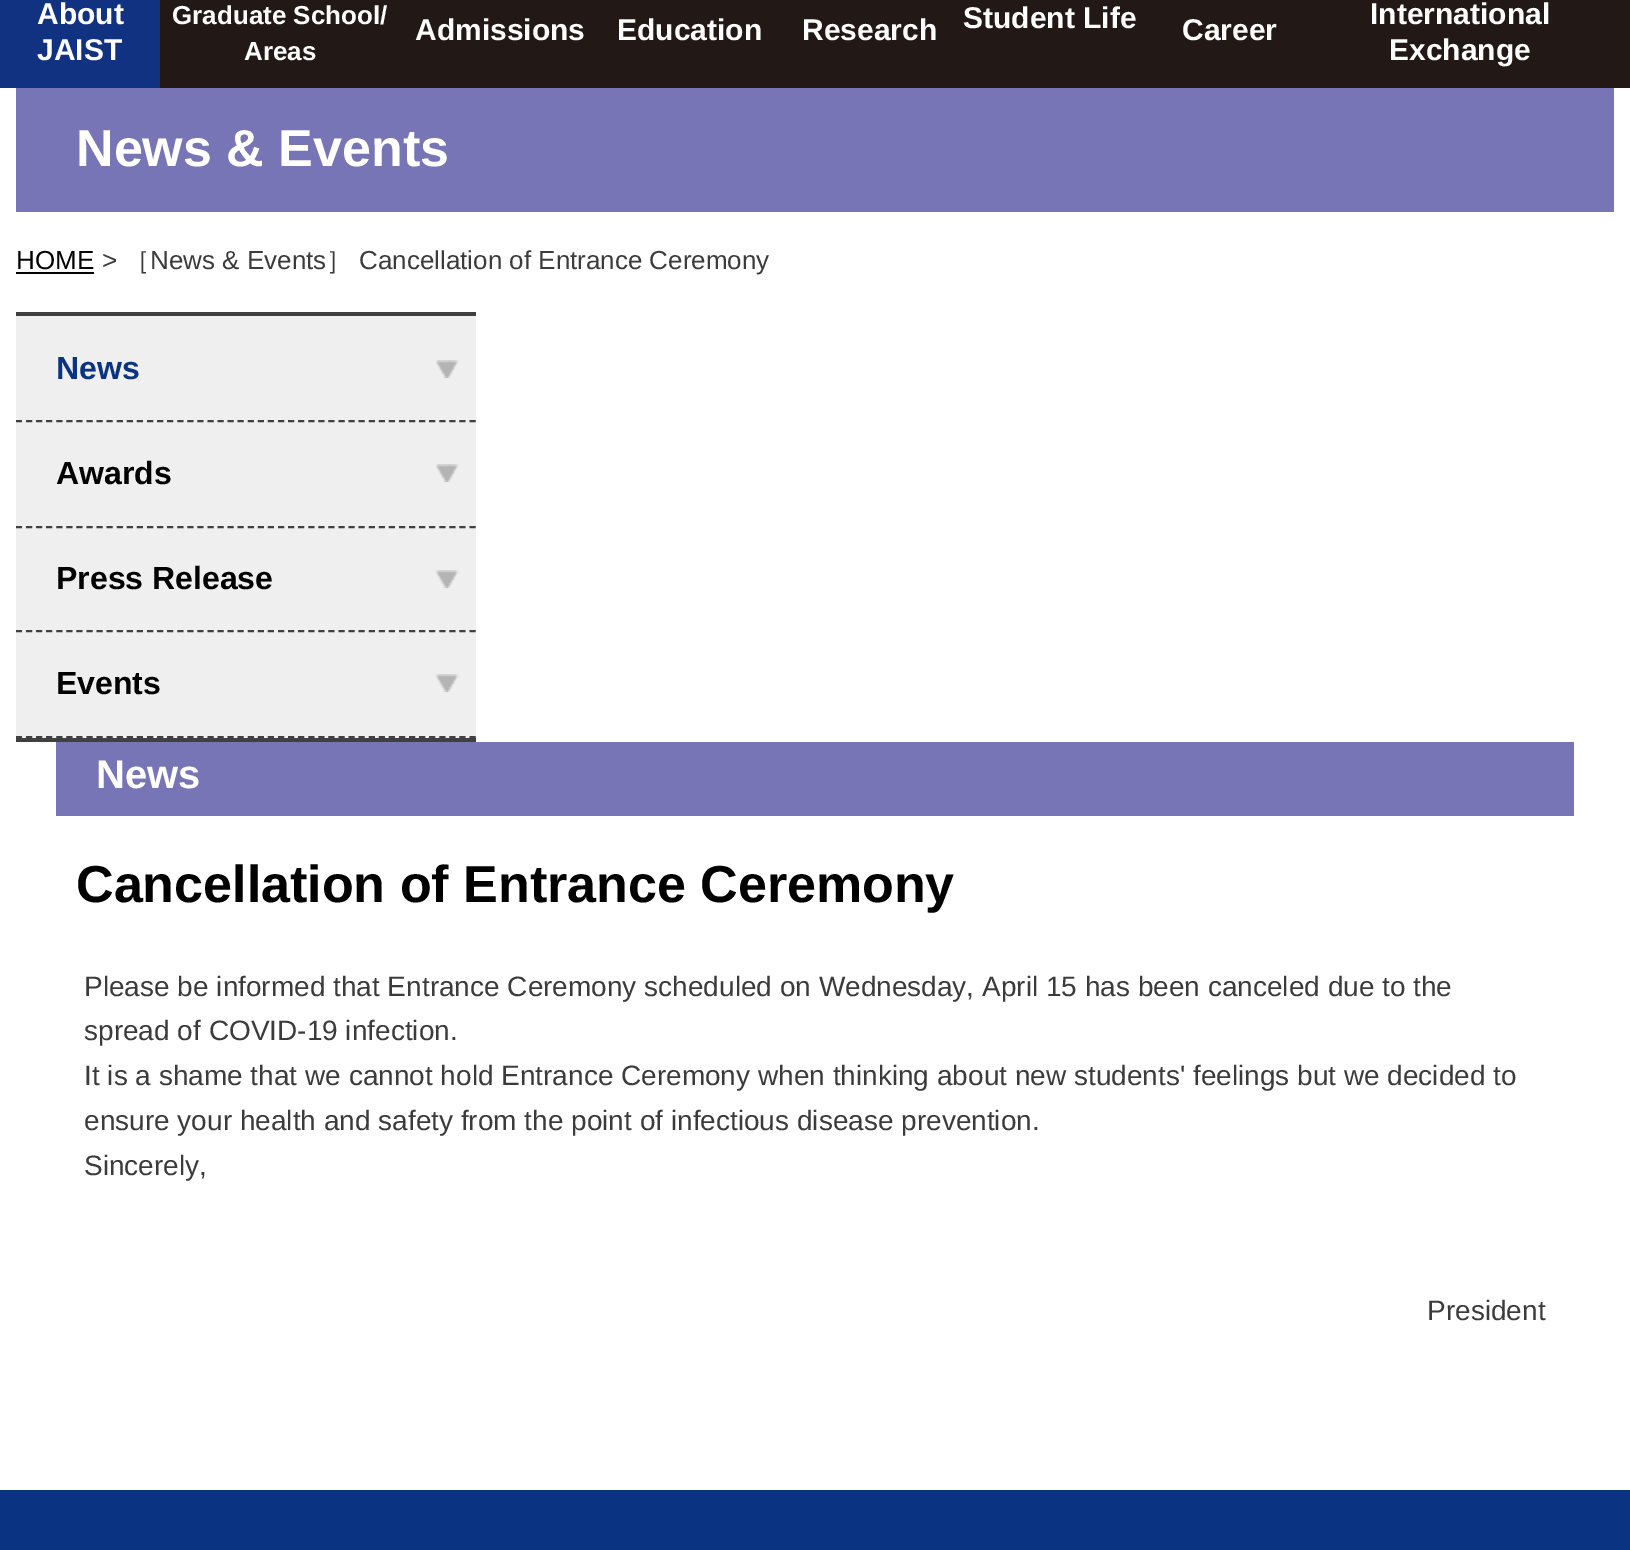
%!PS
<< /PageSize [1630 1550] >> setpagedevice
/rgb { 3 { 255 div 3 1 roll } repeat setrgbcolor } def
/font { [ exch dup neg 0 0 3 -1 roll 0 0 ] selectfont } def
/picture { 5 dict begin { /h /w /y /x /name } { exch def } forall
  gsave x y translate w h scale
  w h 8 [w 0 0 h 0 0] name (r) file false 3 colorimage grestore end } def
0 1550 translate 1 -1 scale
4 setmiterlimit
255 255 255 rgb
0 0 1630 1550 rectfill
[
  [160 0 1470 88 34 24 21]
  [0 0 160 88 16 50 128]
  [16 88 1598 124 119 117 182]
  [16 272 78 2 0 0 0]
  [16 312 460 4 64 64 64]
  [16 738 460 4 64 64 64]
  [16 316 460 422 239 239 239]
] { aload pop rgb rectfill } forall
(img/1.rgb) 436 360 23 18 picture
64 64 64 rgb
2 setlinewidth
[6 4.08] 0 setdash
16 421 moveto 476 421 lineto stroke
(img/1.rgb) 436 464 23 18 picture
16 527 moveto 476 527 lineto stroke
(img/1.rgb) 436 570 23 18 picture
16 631 moveto 476 631 lineto stroke
(img/1.rgb) 436 674 23 18 picture
16 737 moveto 476 737 lineto stroke
119 117 182 rgb
56 742 1518 74 rectfill
10 51 130 rgb
0 1490 1630 60 rectfill
/LiberationSans-Bold 30 font
255 255 255 rgb
37 24 moveto (About) show
37 60 moveto (JAIST) show
/LiberationSans-Bold 26 font
172 24 moveto (Graduate School/) show
244 60 moveto (Areas) show
/LiberationSans-Bold 30 font
[
  [(Admissions) 415 40]
  [(Education) 617 40]
  [(Research) 802 40]
  [(Student Life) 963 28]
  [(Career) 1182 40]
  [(International) 1370 24]
  [(Exchange) 1389 60]
] { aload pop moveto show } forall
/LiberationSans-Bold 52 font
76 166 moveto (News & Events) show
/LiberationSans-Regular 26 font
0 0 0 rgb
16 269 moveto (HOME) show
59 59 59 rgb
102 269 moveto (>) show
/WenQuanYiZenHei-Medium 26 font
124 269 moveto (［) show
/LiberationSans-Regular 26 font
150 269 moveto (News & Events) show
/WenQuanYiZenHei-Medium 26 font
326 269 moveto (］) show
/LiberationSans-Regular 26 font
359 269 moveto (Cancellation of Entrance Ceremony) show
/LiberationSans-Bold 32 font
10 51 130 rgb
56 379 moveto (News) show
0 0 0 rgb
[
  [(Awards) 56 484]
  [(Press Release) 56 589]
  [(Events) 56 694]
] { aload pop moveto show } forall
/LiberationSans-Bold 40 font
255 255 255 rgb
96 788 moveto (News) show
/LiberationSans-Bold 52 font
0 0 0 rgb
76 902 moveto (Cancellation of Entrance Ceremony) show
/LiberationSans-Regular 28 font
59 59 59 rgb
[
  [(Please be informed that Entrance Ceremony scheduled on Wednesday, April 15 has been canceled due to the) 84 996]
  [(spread of COVID-19 infection.) 84 1040]
  [(It is a shame that we cannot hold Entrance Ceremony when thinking about new students' feelings but we decided to) 84 1085]
  [(ensure your health and safety from the point of infectious disease prevention.) 84 1130]
  [(Sincerely,) 84 1175]
  [(President) 1427 1320]
] { aload pop moveto show } forall
showpage
